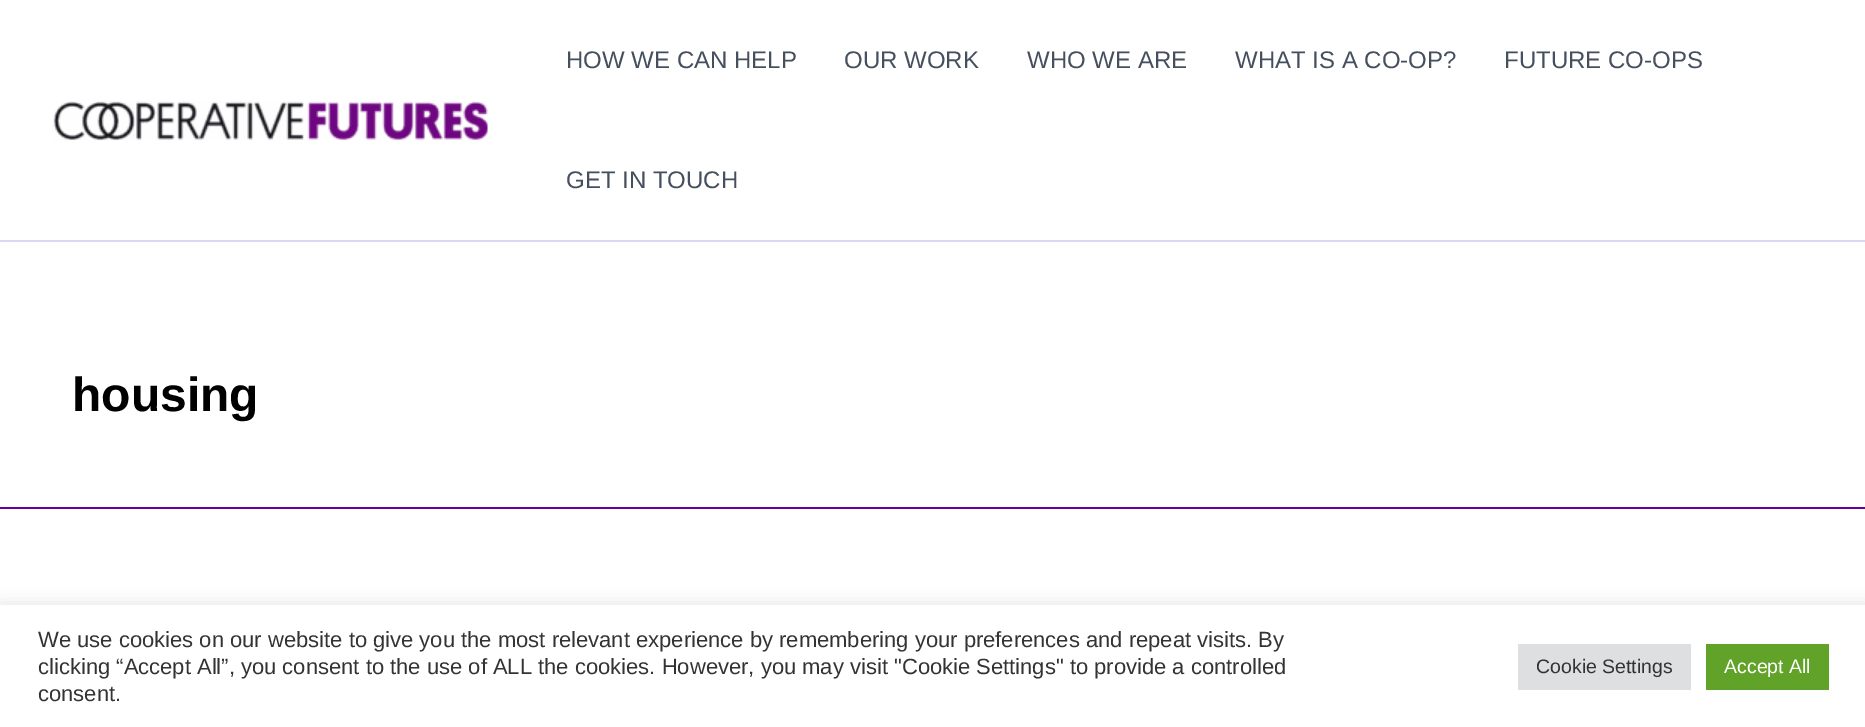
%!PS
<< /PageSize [1865 727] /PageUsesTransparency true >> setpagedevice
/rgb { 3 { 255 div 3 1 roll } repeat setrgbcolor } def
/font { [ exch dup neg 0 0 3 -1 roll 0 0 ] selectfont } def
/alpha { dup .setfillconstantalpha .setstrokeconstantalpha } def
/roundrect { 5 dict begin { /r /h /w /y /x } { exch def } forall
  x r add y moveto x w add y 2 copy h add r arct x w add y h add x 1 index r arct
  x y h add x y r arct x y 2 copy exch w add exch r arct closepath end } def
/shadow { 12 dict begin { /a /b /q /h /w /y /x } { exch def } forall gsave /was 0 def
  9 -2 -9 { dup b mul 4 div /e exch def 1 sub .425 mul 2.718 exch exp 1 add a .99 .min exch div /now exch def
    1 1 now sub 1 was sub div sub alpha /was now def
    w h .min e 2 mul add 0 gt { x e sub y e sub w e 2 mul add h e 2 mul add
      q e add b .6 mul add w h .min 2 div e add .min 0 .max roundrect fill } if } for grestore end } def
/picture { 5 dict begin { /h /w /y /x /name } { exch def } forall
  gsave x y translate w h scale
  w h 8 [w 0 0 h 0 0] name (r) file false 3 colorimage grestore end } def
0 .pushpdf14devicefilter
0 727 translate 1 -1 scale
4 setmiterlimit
255 255 255 rgb
0 0 1865 727 rectfill
216 216 245 rgb
0 240 1865 2 rectfill
(img/1.rgb) 53 101 435 40 picture
102 0 153 rgb
0 507 1865 2 rectfill
172 171 171 rgb
0 603 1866 123 0 7.5 0.3 shadow
[
  [0 605 1865 122 255 255 255]
  [1518 644 173 46 222 223 224]
  [1706 644 123 46 97 162 41]
] { aload pop rgb rectfill } forall
/LiberationSans-Regular 24 font
69 79 94 rgb
[
  [(HOW WE CAN HELP) 566 68]
  [(OUR WORK) 844 68]
  [(WHO WE ARE) 1027 68]
  [(WHAT IS A CO-OP?) 1235 68]
  [(FUTURE CO-OPS) 1504 68]
  [(GET IN TOUCH) 566 188]
] { aload pop moveto show } forall
/LiberationSans-Bold 48 font
0 0 0 rgb
72 411 moveto (housing) show
/LiberationSans-Regular 22 font
51 51 51 rgb
[
  [(We use cookies on our website to give you the most relevant experience by remembering your preferences and repeat visits. By) 38 647]
  [(clicking “Accept All”, you consent to the use of ALL the cookies. However, you may visit "Cookie Settings" to provide a controlled) 38 674]
  [(consent.) 38 701]
] { aload pop moveto show } forall
/LiberationSans-Regular 19.5 font
1536 673 moveto (Cookie Settings) show
255 255 255 rgb
1724 673 moveto (Accept All) show
.poppdf14devicefilter showpage
